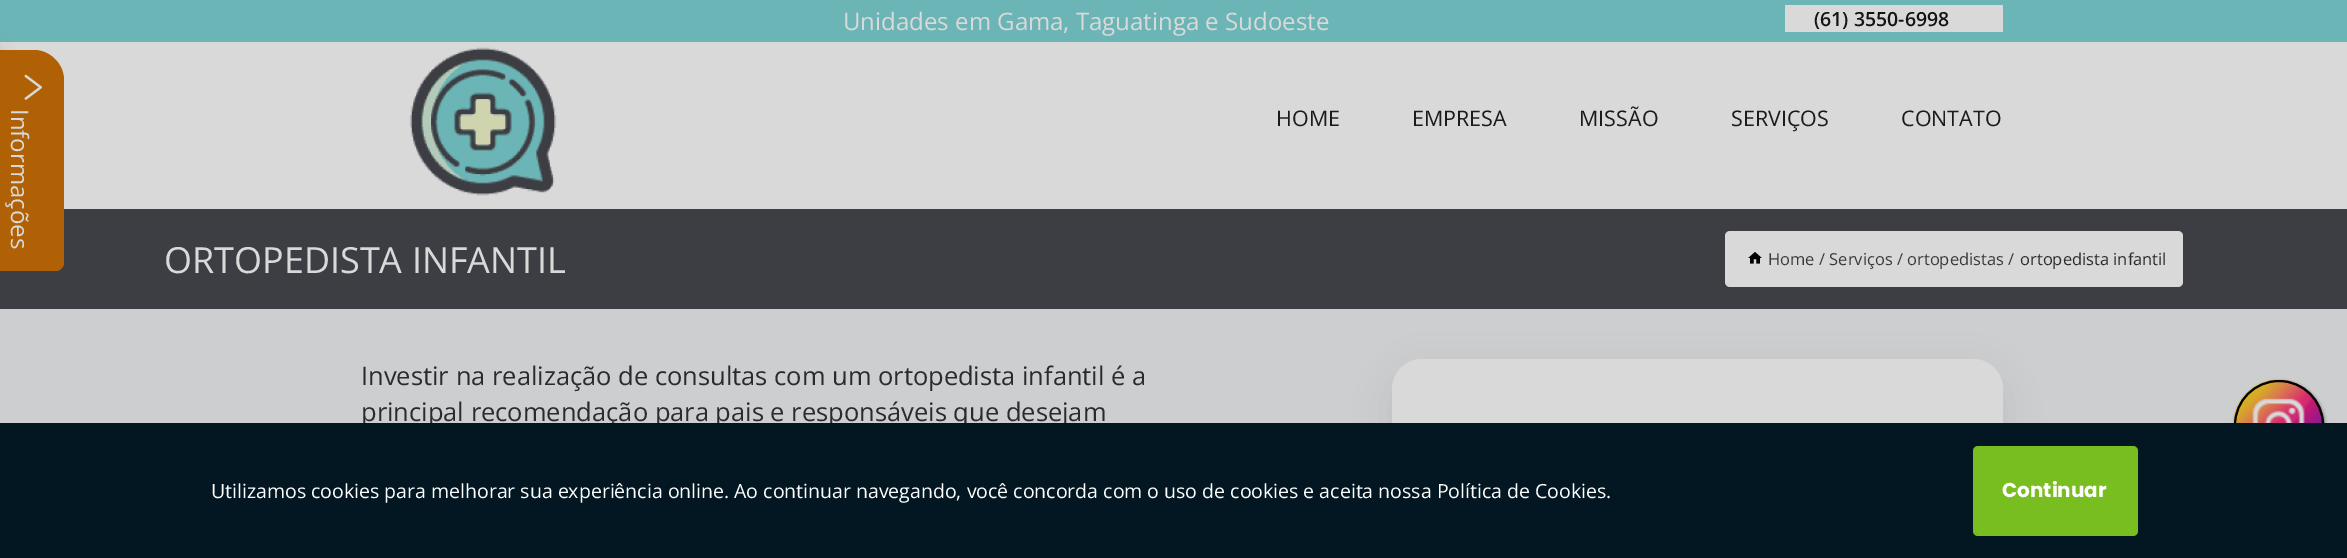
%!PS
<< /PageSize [2347 558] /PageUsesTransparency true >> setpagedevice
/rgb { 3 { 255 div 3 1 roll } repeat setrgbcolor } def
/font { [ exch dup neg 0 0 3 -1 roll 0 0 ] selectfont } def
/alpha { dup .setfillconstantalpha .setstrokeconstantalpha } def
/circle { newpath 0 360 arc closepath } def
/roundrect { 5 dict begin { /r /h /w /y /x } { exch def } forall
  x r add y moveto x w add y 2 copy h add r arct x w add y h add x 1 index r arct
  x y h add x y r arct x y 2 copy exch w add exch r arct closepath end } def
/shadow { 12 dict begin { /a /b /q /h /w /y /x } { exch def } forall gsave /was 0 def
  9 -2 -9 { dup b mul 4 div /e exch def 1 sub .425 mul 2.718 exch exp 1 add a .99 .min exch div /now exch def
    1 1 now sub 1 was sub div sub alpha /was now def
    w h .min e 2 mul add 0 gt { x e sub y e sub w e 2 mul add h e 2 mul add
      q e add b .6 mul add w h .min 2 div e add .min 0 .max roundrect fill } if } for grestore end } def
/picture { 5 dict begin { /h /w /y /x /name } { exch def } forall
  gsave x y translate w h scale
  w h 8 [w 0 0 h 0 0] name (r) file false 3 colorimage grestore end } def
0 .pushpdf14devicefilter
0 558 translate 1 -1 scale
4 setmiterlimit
204 206 208 rgb
0 0 2347 558 rectfill
[
  [0 42 2347 167 217 217 217]
  [0 0 2347 42 108 181 182]
  [1785 5 218 27 217 217 217]
] { aload pop rgb rectfill } forall
(img/1.rgb) 409 47 148 149 picture
60 62 67 rgb
0 209 2347 100 rectfill
113 113 113 rgb
-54 59 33 186 0 18 1 shadow
176 97 6 rgb
64 80 moveto 64 263 lineto 64 267 60 271 56 271 curveto -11 271 lineto -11 50 lineto 34 50 lineto 50 50 64 64 64 80 curveto closepath fill
(img/2.rgb) 24 74 18 26 picture
217 217 217 rgb
1725 231 458 56 5 roundrect fill
(img/3.rgb) 1748 252 14 12 picture
127 133 140 rgb
1392 371 611 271 30 18 0.2 shadow
217 217 217 rgb
1392 359 611 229 30 roundrect fill
116 116 116 rgb
2235 381 90 90 45 1.5 1 shadow
(img/4.rgb) 2233 379 91 44 picture
0 0 0 rgb
2 setlinewidth
2279 425 44 circle stroke
/OpenSans-Regular 24 font
217 217 217 rgb
843 30 moveto (Unidades em Gama, Taguatinga e Sudoeste) show
/OpenSans-SemiBold 19.5 font
20 20 20 rgb
1814 26 moveto (\(61\) 3550-6998) show
/OpenSans-Regular 21.5 font
27 27 27 rgb
[
  [(HOME) 1276 126]
  [(EMPRESA) 1412 126]
  [(MISSÃO) 1579 126]
  [(SERVIÇOS) 1731 126]
  [(CONTATO) 1901 126]
] { aload pop moveto show } forall
/OpenSans-Regular 24 font
217 217 217 rgb
gsave 11 109 translate 90 rotate 0 0 moveto (Informações) show grestore
/OpenSans-Regular 36 font
164 273 moveto (ORTOPEDISTA INFANTIL) show
/OpenSans-Regular 16.5 font
58 58 58 rgb
1768 265 moveto (Home / Serviços / ortopedistas /) show
43 43 43 rgb
2020 265 moveto (ortopedista infantil) show
/OpenSans-Regular 25.5 font
361 385 moveto (Investir na realização de consultas com um ortopedista infantil é a) show
361 421 moveto (principal recomendação para pais e responsáveis que desejam) show
2 23 34 rgb
0 423 2347 135 rectfill
/OpenSans-Regular 19.5 font
255 255 255 rgb
211 498 moveto (Utilizamos cookies para melhorar sua experiência online. Ao continuar navegando, você concorda com o uso de cookies e aceita nossa Política de Cookies.) show
120 190 32 rgb
1973 446 165 90 5 roundrect fill
/Poppins-Bold 20 font
255 255 255 rgb
2002 497 moveto (Continuar) show
.poppdf14devicefilter showpage
